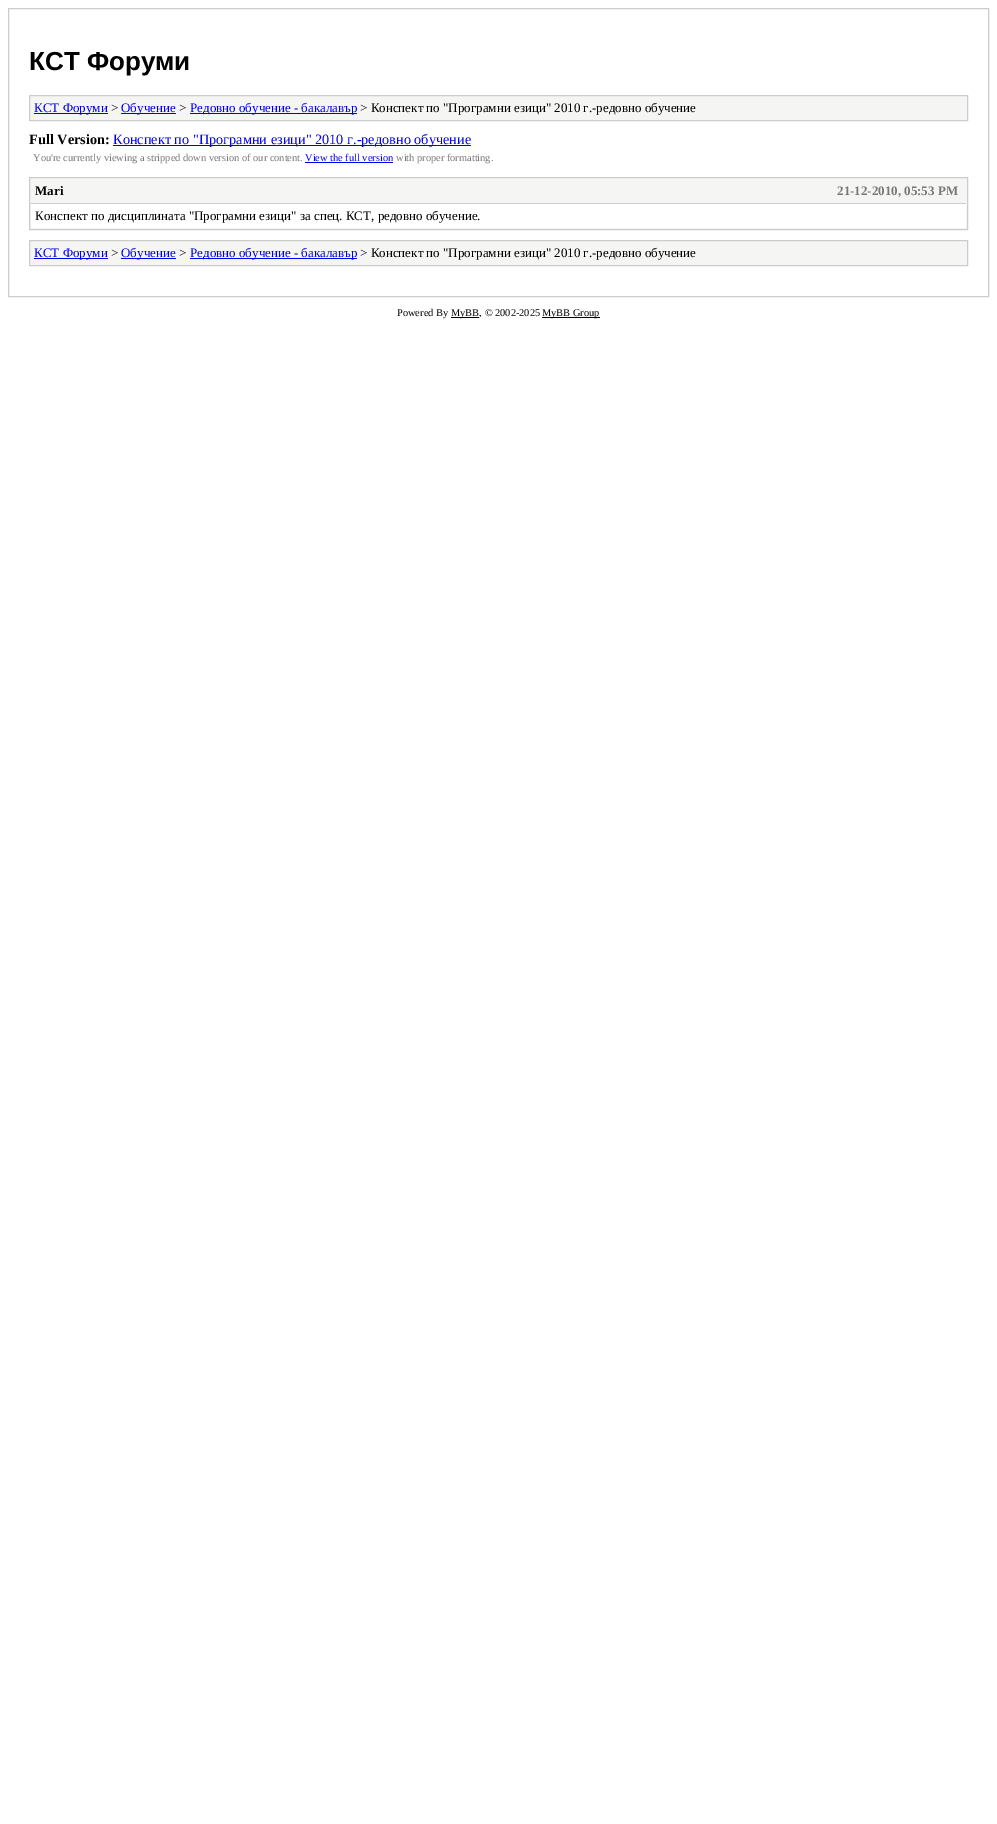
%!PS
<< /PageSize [997 1824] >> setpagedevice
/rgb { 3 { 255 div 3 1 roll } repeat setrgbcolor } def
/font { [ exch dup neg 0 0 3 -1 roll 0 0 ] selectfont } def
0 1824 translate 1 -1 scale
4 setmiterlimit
255 255 255 rgb
0 0 997 1824 rectfill
204 204 204 rgb
8.5 8.5 980 288 rectstroke
245 245 244 rgb
29.5 95.5 moveto 967.5 95.5 lineto 967.5 120.5 lineto 29.5 120.5 lineto closepath gsave fill grestore
204 204 204 rgb
stroke
[
  [34 113 74 1 0 0 238]
  [121 113 55 1 0 0 238]
  [190 113 167 1 0 0 238]
  [113 145 358 1 0 0 238]
  [305 162 88 1 0 0 238]
] { aload pop rgb rectfill } forall
245 245 244 rgb
29.5 177.5 moveto 967.5 177.5 lineto 967.5 229.5 lineto 29.5 229.5 lineto closepath gsave fill grestore
204 204 204 rgb
stroke
31 203 935 1 rectfill
255 255 255 rgb
31 204 935 24 rectfill
245 245 244 rgb
29.5 240.5 moveto 967.5 240.5 lineto 967.5 265.5 lineto 29.5 265.5 lineto closepath gsave fill grestore
204 204 204 rgb
stroke
[
  [34 258 74 1 0 0 238]
  [121 258 55 1 0 0 238]
  [190 258 167 1 0 0 238]
  [451 317 28 1 0 0 0]
  [542 317 58 1 0 0 0]
] { aload pop rgb rectfill } forall
/LiberationSans-Bold 26 font
29 70 moveto (КСТ Форуми) show
/LiberationSerif-Regular 13 font
0 0 238 rgb
34 112 moveto (КСТ Форуми) show
0 0 0 rgb
111 112 moveto (>) show
0 0 238 rgb
121 112 moveto (Обучение) show
0 0 0 rgb
179 112 moveto (>) show
0 0 238 rgb
190 112 moveto (Редовно обучение - бакалавър) show
0 0 0 rgb
360 112 moveto (> Конспект по "Програмни езици" 2010 г.-редовно обучение) show
/LiberationSerif-Bold 14.3 font
29 144 moveto (Full Version:) show
/LiberationSerif-Regular 14.3 font
0 0 238 rgb
113 144 moveto (Конспект по "Програмни езици" 2010 г.-редовно обучение) show
/LiberationSerif-Regular 10.4 font
119 119 119 rgb
33 161 moveto (You're currently viewing a stripped down version of our content.) show
0 0 238 rgb
305 161 moveto (View the full version) show
119 119 119 rgb
396 161 moveto (with proper formatting.) show
/LiberationSerif-Bold 13 font
0 0 0 rgb
35 195 moveto (Mari) show
119 119 119 rgb
837 195 moveto (21-12-2010, 05:53 PM) show
/LiberationSerif-Regular 13 font
0 0 0 rgb
35 220 moveto (Конспект по дисциплината "Програмни езици" за спец. КСТ, редовно обучение.) show
0 0 238 rgb
34 257 moveto (КСТ Форуми) show
0 0 0 rgb
111 257 moveto (>) show
0 0 238 rgb
121 257 moveto (Обучение) show
0 0 0 rgb
179 257 moveto (>) show
0 0 238 rgb
190 257 moveto (Редовно обучение - бакалавър) show
0 0 0 rgb
360 257 moveto (> Конспект по "Програмни езици" 2010 г.-редовно обучение) show
/LiberationSerif-Regular 10.4 font
[
  [(Powered By) 397 316]
  [(MyBB, © 2002-2025) 451 316]
  [(MyBB Group) 542 316]
] { aload pop moveto show } forall
showpage
